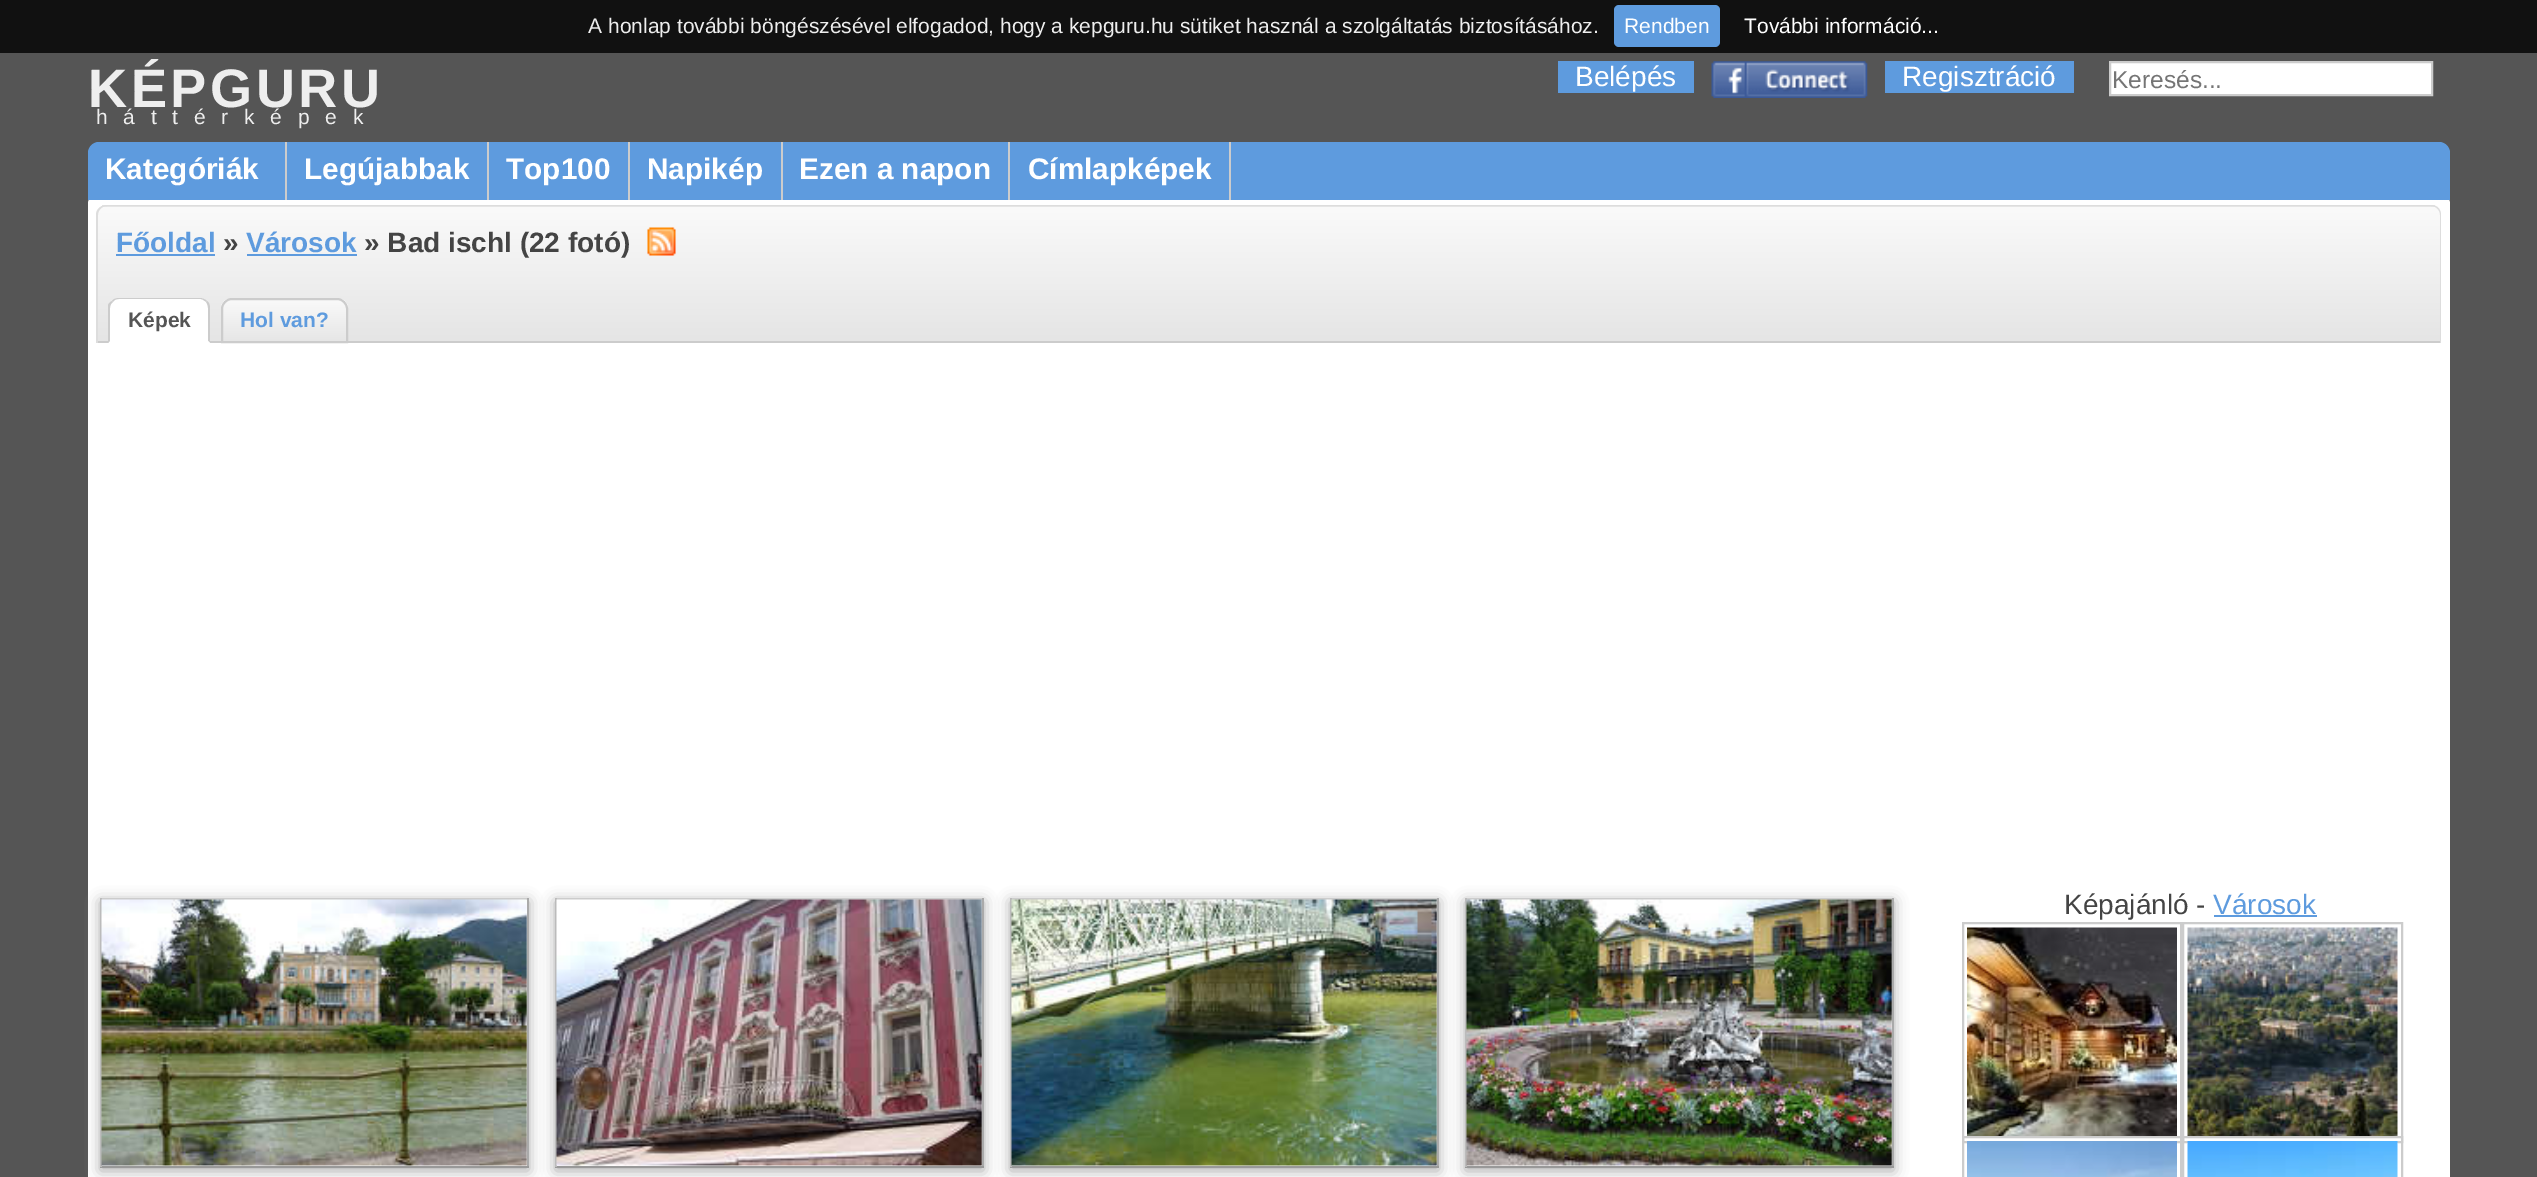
%!PS
<< /PageSize [2537 1177] /PageUsesTransparency true >> setpagedevice
/rgb { 3 { 255 div 3 1 roll } repeat setrgbcolor } def
/font { [ exch dup neg 0 0 3 -1 roll 0 0 ] selectfont } def
/alpha { dup .setfillconstantalpha .setstrokeconstantalpha } def
/roundrect { 5 dict begin { /r /h /w /y /x } { exch def } forall
  x r add y moveto x w add y 2 copy h add r arct x w add y h add x 1 index r arct
  x y h add x y r arct x y 2 copy exch w add exch r arct closepath end } def
/shadow { 12 dict begin { /a /b /q /h /w /y /x } { exch def } forall gsave /was 0 def
  9 -2 -9 { dup b mul 4 div /e exch def 1 sub .425 mul 2.718 exch exp 1 add a .99 .min exch div /now exch def
    1 1 now sub 1 was sub div sub alpha /was now def
    w h .min e 2 mul add 0 gt { x e sub y e sub w e 2 mul add h e 2 mul add
      q e add b .6 mul add w h .min 2 div e add .min 0 .max roundrect fill } if } for grestore end } def
/picture { 5 dict begin { /h /w /y /x /name } { exch def } forall
  gsave x y translate w h scale
  w h 8 [w 0 0 h 0 0] name (r) file false 3 colorimage grestore end } def
0 .pushpdf14devicefilter
0 1177 translate 1 -1 scale
4 setmiterlimit
85 85 85 rgb
0 0 2537 1177 rectfill
17 17 17 rgb
0 0 2537 53 rectfill
94 155 222 rgb
1614 5 106 42 5 roundrect fill
1558 61 136 32 rectfill
(img/1.rgb) 1711 61 157 37 picture
1885 61 189 32 rectfill
255 255 255 rgb
2110 62 moveto 2432 62 lineto 2432 95 lineto 2110 95 lineto closepath gsave fill grestore
204 204 204 rgb
2 setlinewidth
stroke
255 255 255 rgb
99 193 moveto 2439 193 lineto 2445 193 2450 198 2450 204 curveto 2450 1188 lineto 88 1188 lineto 88 204 lineto 88 198 93 193 99 193 curveto closepath fill
94 155 222 rgb
99 142 moveto 2439 142 lineto 2445 142 2450 147 2450 153 curveto 2450 200 lineto 88 200 lineto 88 153 lineto 88 147 93 142 99 142 curveto closepath fill
[
  [285 142 2 58 204 204 204]
  [487 142 2 58 204 204 204]
  [628 142 2 58 204 204 204]
  [781 142 2 58 204 204 204]
  [1008 142 2 58 204 204 204]
  [1229 142 2 58 204 204 204]
] { aload pop rgb rectfill } forall
gsave
107 205 moveto 2430 205 lineto 2436 205 2441 210 2441 216 curveto 2441 343 lineto 96 343 lineto 96 216 lineto 96 210 101 205 107 205 curveto closepath clip newpath
gsave 96 205 moveto 2441 205 lineto 2441 207 lineto 96 207 lineto closepath clip newpath
<< /ShadingType 2 /ColorSpace /DeviceRGB /Coords [1269 70 1269 207] /Extend [true true] /Function << /FunctionType 2 /Domain [0 1] /C0 [0.98 0.98 0.98] /C1 [0.898 0.898 0.898] /N 1 >> >> shfill grestore
gsave 96 207 moveto 2441 207 lineto 2441 341 lineto 96 341 lineto closepath clip newpath
<< /ShadingType 2 /ColorSpace /DeviceRGB /Coords [1269 206 1269 343] /Extend [true true] /Function << /FunctionType 2 /Domain [0 1] /C0 [0.98 0.98 0.98] /C1 [0.898 0.898 0.898] /N 1 >> >> shfill grestore
grestore
221 221 221 rgb
107 205 moveto 2431 205 lineto 2437 205 2441 209 2441 215 curveto 2441 343 lineto 96 343 lineto 96 215 lineto 96 209 101 205 107 205 curveto closepath 107 206 moveto 2431 206 lineto 2436 206 2440 210 2440 215 curveto 2440 343 lineto 98 343 lineto 98 215 lineto 98 210 102 206 107 206 curveto closepath eofill
94 155 222 rgb
116 254 99 2 rectfill
247 254 110 2 rectfill
(img/2.rgb) 647 227 29 29 picture
204 204 204 rgb
98 341 2342 2 rectfill
255 255 255 rgb
120 298 moveto 199 298 lineto 205 298 210 303 210 309 curveto 210 343 lineto 109 343 lineto 109 309 lineto 109 303 114 298 120 298 curveto closepath fill
204 204 204 rgb
119 298 moveto 116 298 113 299 112 301 curveto 113 302 lineto 114 300 116 299 119 299 curveto 200 299 lineto 202 299 204 300 206 302 curveto 207 301 lineto 205 299 202 298 200 298 curveto closepath fill
207 301 moveto 209 302 210 305 210 308 curveto 210 343 lineto 208 341 lineto 208 308 lineto 208 306 207 303 206 302 curveto closepath fill
255 255 255 rgb
210 343 moveto 208 341 lineto 110 341 lineto 108 343 lineto closepath fill
204 204 204 rgb
108 343 moveto 110 341 lineto 110 308 lineto 110 306 111 303 113 302 curveto 112 301 lineto 110 302 109 303 108 305 curveto closepath fill
gsave
232 298 moveto 337 298 lineto 343 298 348 303 348 309 curveto 348 343 lineto 221 343 lineto 221 309 lineto 221 303 226 298 232 298 curveto closepath clip newpath
gsave 221 299 moveto 348 299 lineto 348 341 lineto 221 341 lineto closepath clip newpath
<< /ShadingType 2 /ColorSpace /DeviceRGB /Coords [284 299 284 341] /Extend [true true] /Function << /FunctionType 2 /Domain [0 1] /C0 [0.98 0.98 0.98] /C1 [0.902 0.902 0.902] /N 1 >> >> shfill grestore
grestore
232 299 moveto 337 299 lineto 342.5 299 347 303.5 347 309 curveto 347 342 lineto 222 342 lineto 222 309 lineto 222 303.5 226.5 299 232 299 curveto closepath stroke
170 170 170 rgb
100 901 429 270 0 7 1 shadow
[
  [100 898 429 2 204 204 204]
  [527 898 2 269 170 170 170]
  [100 1166 429 2 153 153 153]
  [100 898 2 269 187 187 187]
] { aload pop rgb rectfill } forall
(img/3.rgb) 101 899 426 267 picture
170 170 170 rgb
555 901 429 270 0 7 1 shadow
[
  [555 898 429 2 204 204 204]
  [982 898 2 269 170 170 170]
  [555 1166 429 2 153 153 153]
  [555 898 2 269 187 187 187]
] { aload pop rgb rectfill } forall
(img/4.rgb) 556 899 426 267 picture
170 170 170 rgb
1010 901 429 270 0 7 1 shadow
[
  [1010 898 429 2 204 204 204]
  [1437 898 2 269 170 170 170]
  [1010 1166 429 2 153 153 153]
  [1010 898 2 269 187 187 187]
] { aload pop rgb rectfill } forall
(img/5.rgb) 1011 899 426 267 picture
170 170 170 rgb
1465 901 429 270 0 7 1 shadow
[
  [1465 898 429 2 204 204 204]
  [1892 898 2 269 170 170 170]
  [1465 1166 429 2 153 153 153]
  [1465 898 2 269 187 187 187]
] { aload pop rgb rectfill } forall
(img/6.rgb) 1466 899 426 267 picture
94 155 222 rgb
2214 915 103 2 rectfill
204 204 204 rgb
1963 923 218 219 rectstroke
(img/7.rgb) 1967 927 210 209 picture
2183 923 219 219 rectstroke
(img/8.rgb) 2187 927 211 209 picture
1963 1137 218 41 rectstroke
(img/9.rgb) 1967 1141 210 36 picture
2183 1137 219 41 rectstroke
(img/10.rgb) 2187 1141 211 36 picture
/LiberationSans-Regular 21 font
238 238 238 rgb
588 33 moveto (A honlap további böngészésével elfogadod, hogy a kepguru.hu sütiket használ a szolgáltatás biztosításához.) show
255 255 255 rgb
1624 33 moveto (Rendben) show
1744 33 moveto (További információ...) show
/LiberationSans-Bold 54.25 font
238 238 238 rgb
88 107 moveto 3.5 0 (KÉPGURU) ashow
/LiberationSans-Regular 21 font
96 124 moveto 15.75 0 (háttérképek) ashow
/LiberationSans-Regular 28 font
255 255 255 rgb
1575 86 moveto (Belépés) show
1902 86 moveto (Regisztráció) show
/LiberationSans-Regular 24.5 font
117 117 117 rgb
2112 88 moveto (Keresés...) show
/LiberationSans-Bold 29.75 font
255 255 255 rgb
[
  [(Kategóriák) 105 179]
  [(Legújabbak) 304 179]
  [(Top100) 506 179]
  [(Napikép) 647 179]
  [(Ezen a napon) 799 179]
  [(Címlapképek) 1028 179]
] { aload pop moveto show } forall
/LiberationSans-Bold 28 font
94 155 222 rgb
116 252 moveto (Főoldal) show
68 68 68 rgb
223 252 moveto (») show
94 155 222 rgb
246 252 moveto (Városok) show
68 68 68 rgb
364 252 moveto (» Bad ischl \(22 fotó\)) show
/LiberationSans-Bold 21 font
85 85 85 rgb
128 327 moveto (Képek) show
94 155 222 rgb
240 327 moveto (Hol van?) show
/LiberationSans-Regular 28 font
68 68 68 rgb
2064 914 moveto (Képajánló -) show
94 155 222 rgb
2213 914 moveto (Városok) show
.poppdf14devicefilter showpage
